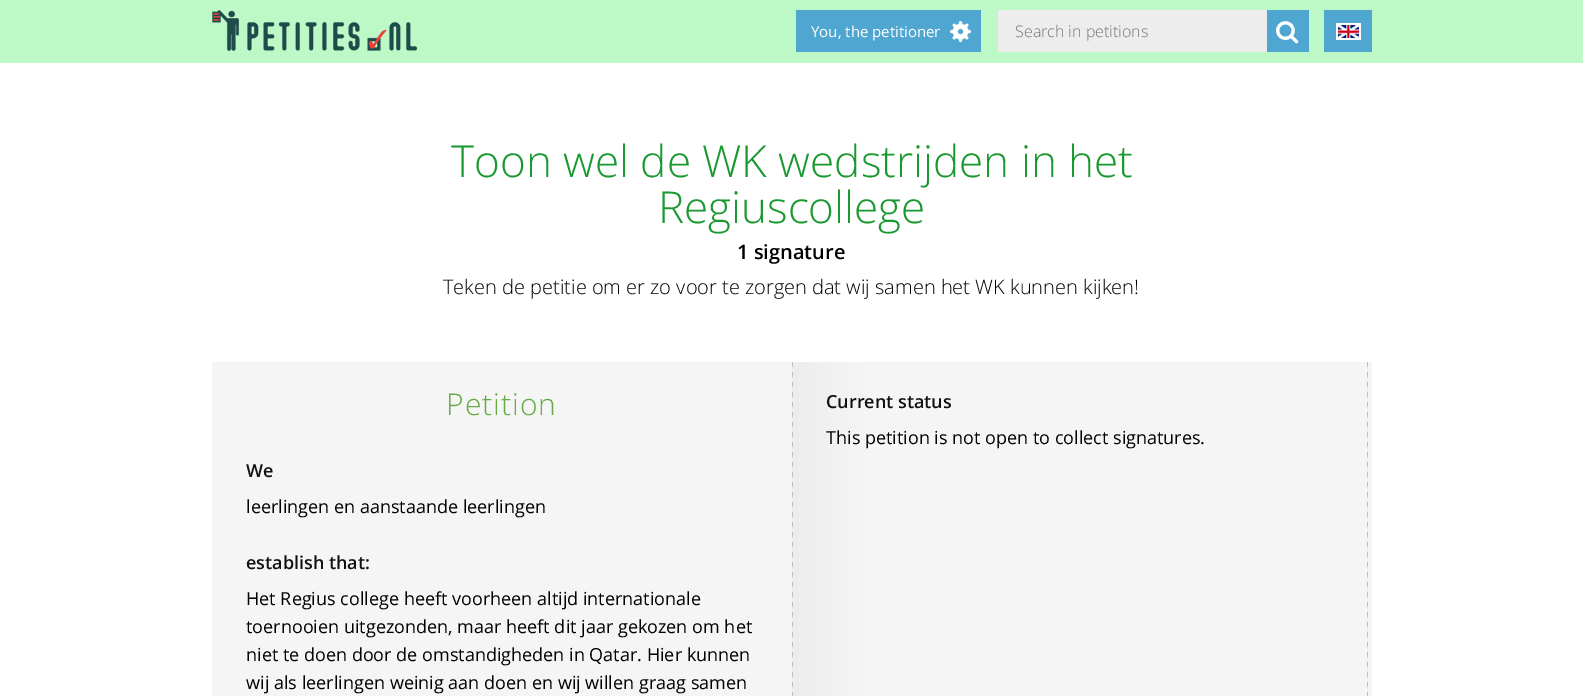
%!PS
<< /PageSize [1583 696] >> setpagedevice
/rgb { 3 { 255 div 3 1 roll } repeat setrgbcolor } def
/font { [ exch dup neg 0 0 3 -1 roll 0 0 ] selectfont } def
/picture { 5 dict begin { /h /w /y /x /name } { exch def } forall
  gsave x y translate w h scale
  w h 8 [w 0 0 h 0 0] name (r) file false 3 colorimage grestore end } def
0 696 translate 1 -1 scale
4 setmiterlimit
255 255 255 rgb
0 0 1583 696 rectfill
188 249 199 rgb
0 0 1583 63 rectfill
(img/1.rgb) 212 10 205 41 picture
79 166 208 rgb
796 10 185 42 rectfill
(img/2.rgb) 950 21 21 21 picture
236 237 236 rgb
998 10 269 42 rectfill
79 166 208 rgb
1267 10 42 42 rectfill
(img/3.rgb) 1276 21 23 23 picture
1324 10 48 42 rectfill
(img/4.rgb) 1336 23 25 17 picture
245 245 245 rgb
212 362 580 334 rectfill
1368 362 4 334 rectfill
(img/5.rgb) 792 362 576 334 picture
/OpenSans-Regular 15 font
255 255 255 rgb
811 37 moveto (You, the petitioner) show
/OpenSans-Light 16 font
117 117 117 rgb
1015 37 moveto (Search in petitions) show
/OpenSans-Light 44 font
26 153 49 rgb
451 177 moveto (Toon wel de WK wedstrijden in het) show
658 223 moveto (Regiuscollege) show
/OpenSans-SemiBold 20 font
0 0 0 rgb
737 259 moveto (1 signature) show
/OpenSans-Light 20 font
443 294 moveto (Teken de petitie om er zo voor te zorgen dat wij samen het WK kunnen kijken!) show
/OpenSans-Light 30 font
99 171 66 rgb
446 415 moveto 1 0 (Petition) ashow
/OpenSans-SemiBold 18 font
17 17 17 rgb
246 477 moveto (We) show
/OpenSans-Regular 18 font
0 0 0 rgb
246 513 moveto (leerlingen en aanstaande leerlingen) show
/OpenSans-SemiBold 18 font
17 17 17 rgb
246 569 moveto (establish that:) show
/OpenSans-Regular 18 font
0 0 0 rgb
[
  [(Het Regius college heeft voorheen altijd internationale) 246 605]
  [(toernooien uitgezonden, maar heeft dit jaar gekozen om het) 246 633]
  [(niet te doen door de omstandigheden in Qatar. Hier kunnen) 246 661]
  [(wij als leerlingen weinig aan doen en wij willen graag samen) 246 689]
] { aload pop moveto show } forall
/OpenSans-SemiBold 18 font
17 17 17 rgb
826 408 moveto (Current status) show
/OpenSans-Regular 18 font
0 0 0 rgb
826 444 moveto (This petition is not open to collect signatures.) show
showpage
